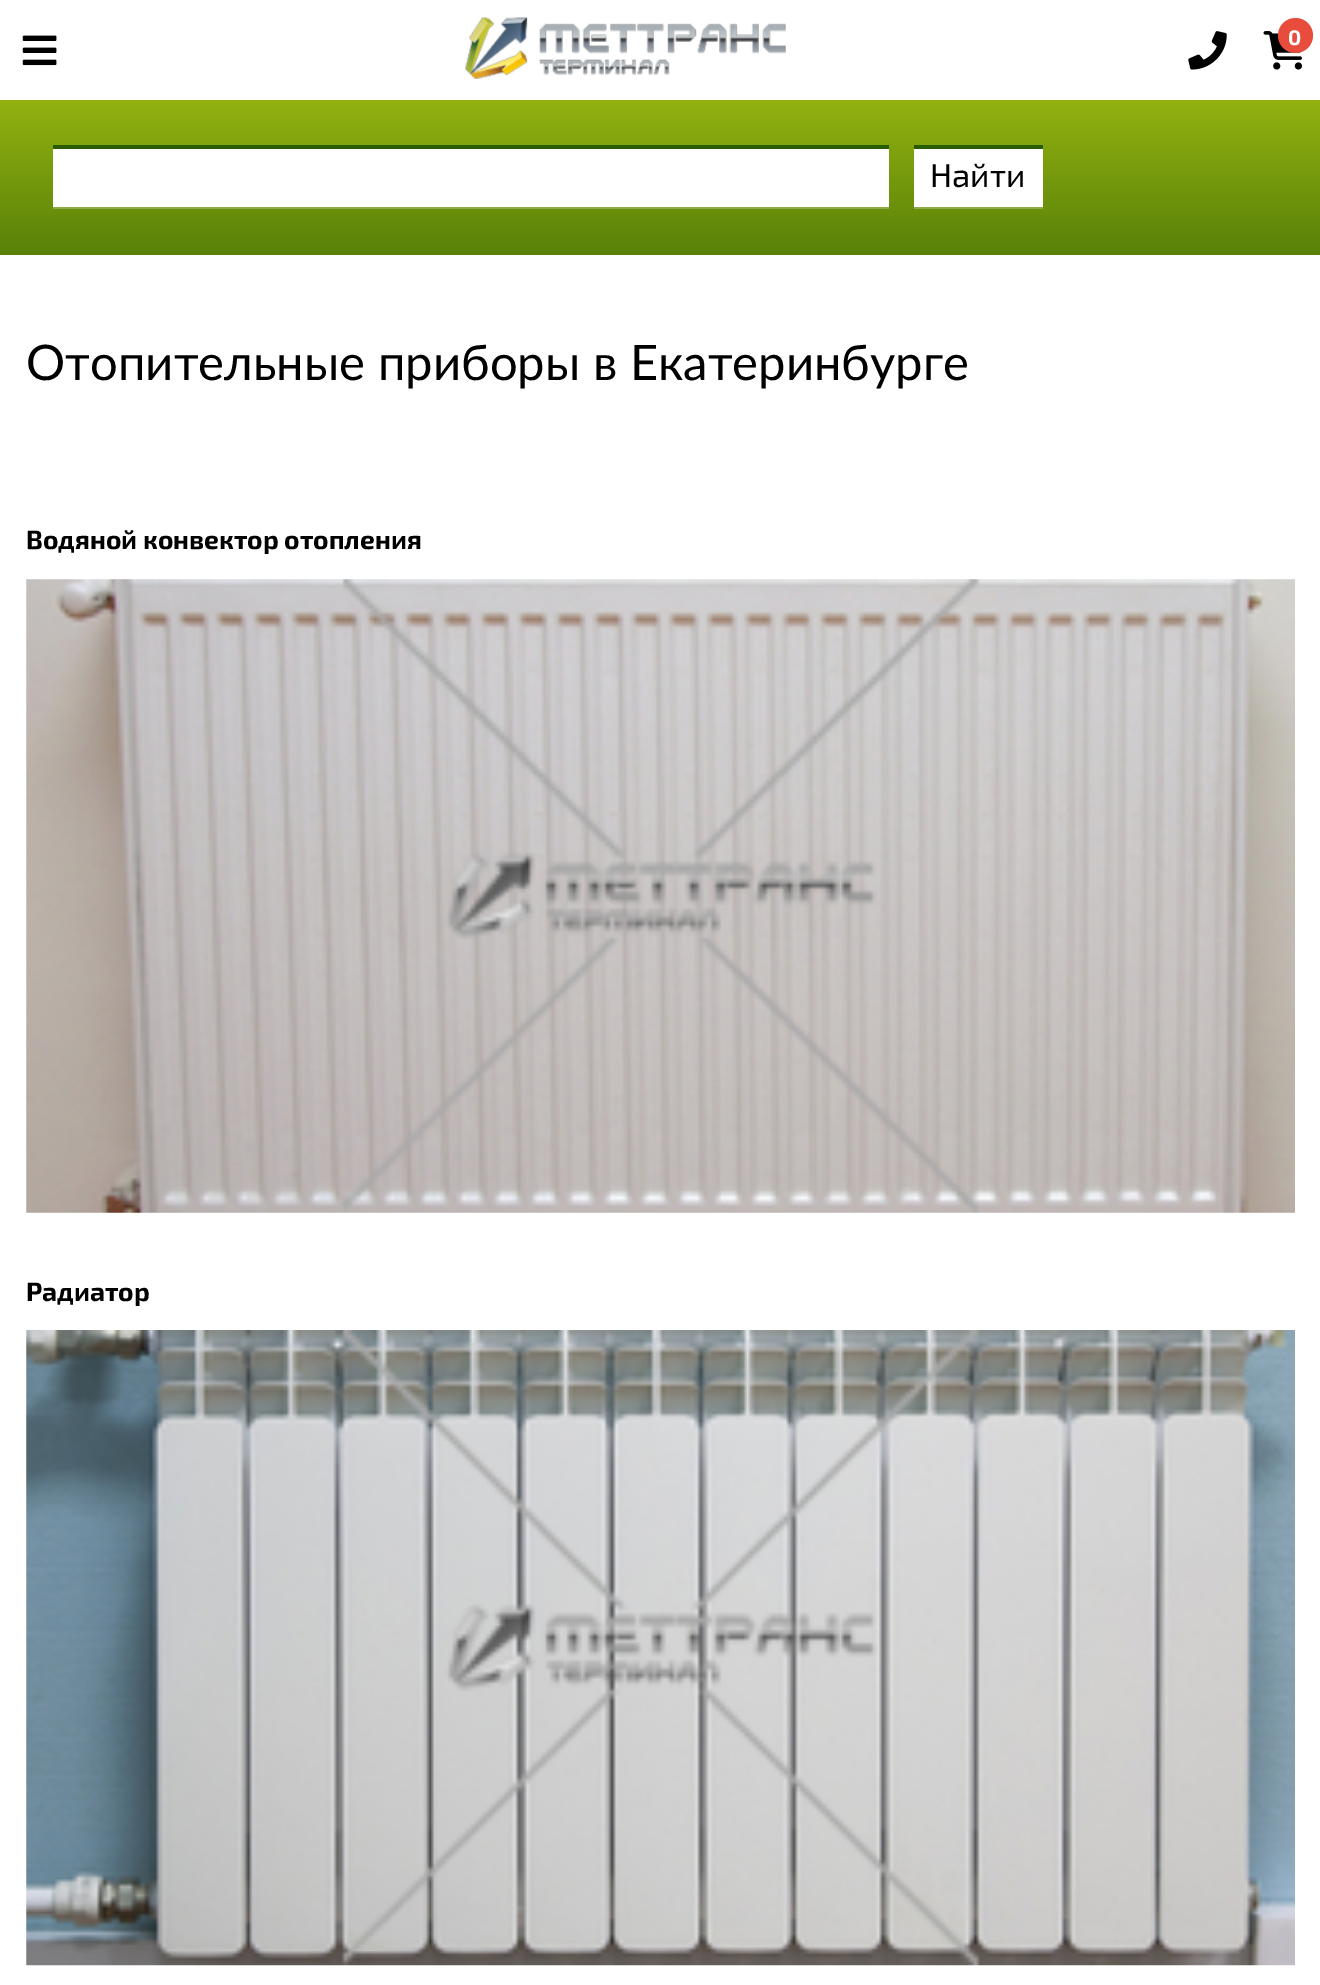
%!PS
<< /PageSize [1320 1985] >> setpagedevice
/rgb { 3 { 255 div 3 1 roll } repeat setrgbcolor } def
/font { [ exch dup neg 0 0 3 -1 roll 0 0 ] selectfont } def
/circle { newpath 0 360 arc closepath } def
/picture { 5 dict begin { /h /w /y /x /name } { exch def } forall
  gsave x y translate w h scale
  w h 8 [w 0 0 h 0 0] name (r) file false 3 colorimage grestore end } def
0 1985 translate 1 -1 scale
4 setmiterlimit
255 255 255 rgb
0 0 1320 1985 rectfill
(img/1.rgb) 22 35 35 31 picture
(img/2.rgb) 465 17 321 62 picture
(img/3.rgb) 1188 31 39 39 picture
(img/4.rgb) 1263 31 39 39 picture
231 76 60 rgb
1295.5 35.5 17.5 circle fill
gsave 0 100 moveto 1320 100 lineto 1320 255 lineto 0 255 lineto closepath clip newpath
<< /ShadingType 2 /ColorSpace /DeviceRGB /Coords [661 100 661 256] /Extend [true true] /Function << /FunctionType 2 /Domain [0 1] /C0 [0.573 0.698 0.063] /C1 [0.349 0.506 0.035] /N 1 >> >> shfill grestore
[
  [53 149 836 58 255 255 255]
  [53 145 836 4 41 91 1]
  [53 207 836 2 143 171 72]
  [914 149 129 58 255 255 255]
  [914 145 129 4 41 91 1]
  [914 207 129 2 143 171 72]
] { aload pop rgb rectfill } forall
(img/5.rgb) 26 579 1269 634 picture
(img/6.rgb) 26 1330 1269 636 picture
/Exo2-Bold 21 font
255 255 255 rgb
1288 45 moveto (0) show
/Exo2-Regular 33 font
0 0 0 rgb
930 187 moveto (Найти) show
/Lato-Regular 49 font
26 380 moveto (Отопительные приборы в Екатеринбурге) show
/Exo2-Bold 26.25 font
26 549 moveto (Водяной конвектор отопления) show
26 1301 moveto (Радиатор) show
showpage
